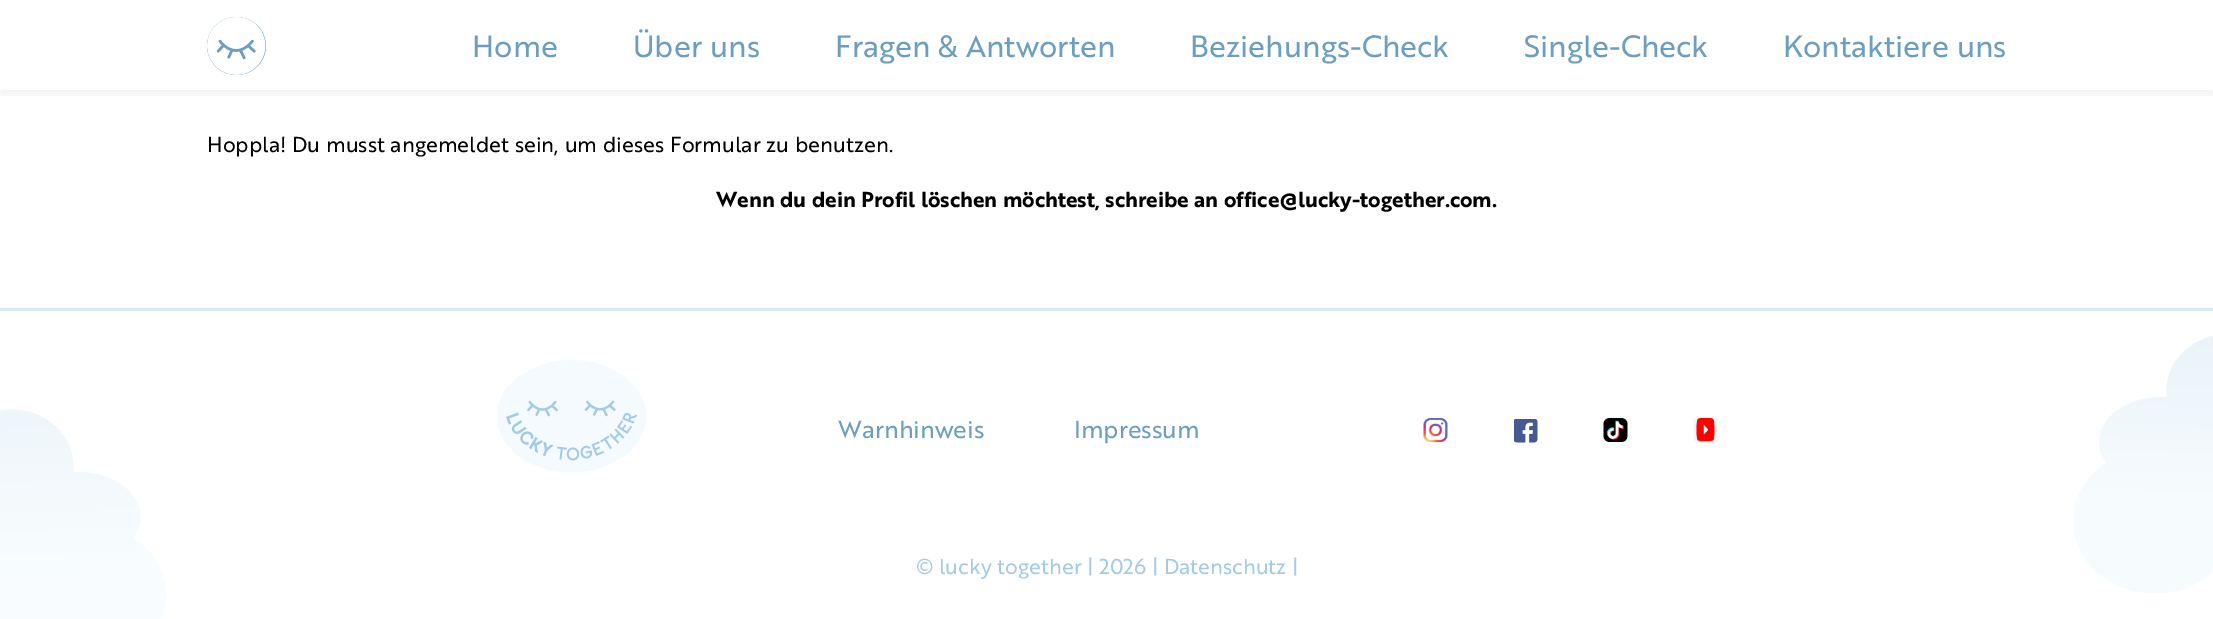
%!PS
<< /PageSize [2213 619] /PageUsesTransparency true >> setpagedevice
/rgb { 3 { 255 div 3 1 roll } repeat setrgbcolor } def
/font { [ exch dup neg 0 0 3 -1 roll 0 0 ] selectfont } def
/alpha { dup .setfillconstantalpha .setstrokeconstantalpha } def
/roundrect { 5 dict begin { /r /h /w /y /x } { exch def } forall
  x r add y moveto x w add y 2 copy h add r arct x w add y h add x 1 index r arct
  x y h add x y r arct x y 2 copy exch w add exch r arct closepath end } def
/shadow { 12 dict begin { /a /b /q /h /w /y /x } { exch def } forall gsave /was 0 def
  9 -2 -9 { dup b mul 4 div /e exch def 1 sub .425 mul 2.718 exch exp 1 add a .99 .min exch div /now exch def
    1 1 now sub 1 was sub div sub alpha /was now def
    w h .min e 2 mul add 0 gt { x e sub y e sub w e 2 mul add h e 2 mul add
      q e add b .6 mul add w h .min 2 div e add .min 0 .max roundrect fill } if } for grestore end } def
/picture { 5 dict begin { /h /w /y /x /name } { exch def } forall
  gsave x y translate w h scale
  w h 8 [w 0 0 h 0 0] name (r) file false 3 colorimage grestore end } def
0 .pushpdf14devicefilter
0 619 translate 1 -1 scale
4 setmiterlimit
255 255 255 rgb
0 0 2213 619 rectfill
gsave
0 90 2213 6 rectclip
0 0 0 rgb
0 5 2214 90 0 4.5 0.05 shadow
grestore
107 158 191 rgb
207 17 59 58 29 roundrect fill
(img/1.rgb) 207 17 59 58 picture
(img/2.rgb) 0 409 166 210 picture
218 234 245 rgb
0 308 2213 3 rectfill
(img/3.rgb) 497 360 149 113 picture
(img/4.rgb) 1423 418 25 24 picture
(img/5.rgb) 1514 419 24 24 picture
(img/6.rgb) 1603 418 25 24 picture
(img/7.rgb) 1693 418 25 24 picture
(img/8.rgb) 2073 336 140 257 picture
/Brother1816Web-Regular 30 font
107 158 191 rgb
[
  [(Home) 472 57]
  [(Über uns) 633 57]
  [(Fragen & Antworten) 835 57]
  [(Beziehungs-Check) 1190 57]
  [(Single-Check) 1524 57]
  [(Kontaktiere uns) 1783 57]
] { aload pop moveto show } forall
/Brother1816Web-Regular 21 font
0 0 0 rgb
207 152 moveto 0.25 0 32 (Hoppla! Du musst angemeldet sein, um dieses Formular zu benutzen.) widthshow
/Brother1816Web-Bold 21 font
716 207 moveto (Wenn du dein Profil löschen möchtest, schreibe an office@lucky-together.com.) show
/Brother1816Web-Regular 24 font
107 158 191 rgb
838 438 moveto (Warnhinweis) show
1074 438 moveto (Impressum) show
/Brother1816Web-Regular 21 font
163 203 229 rgb
[
  [(© lucky together) 916 574]
  [(| 2026 | Datenschutz) 1087 574]
  [(|) 1292 574]
] { aload pop moveto show } forall
.poppdf14devicefilter showpage
